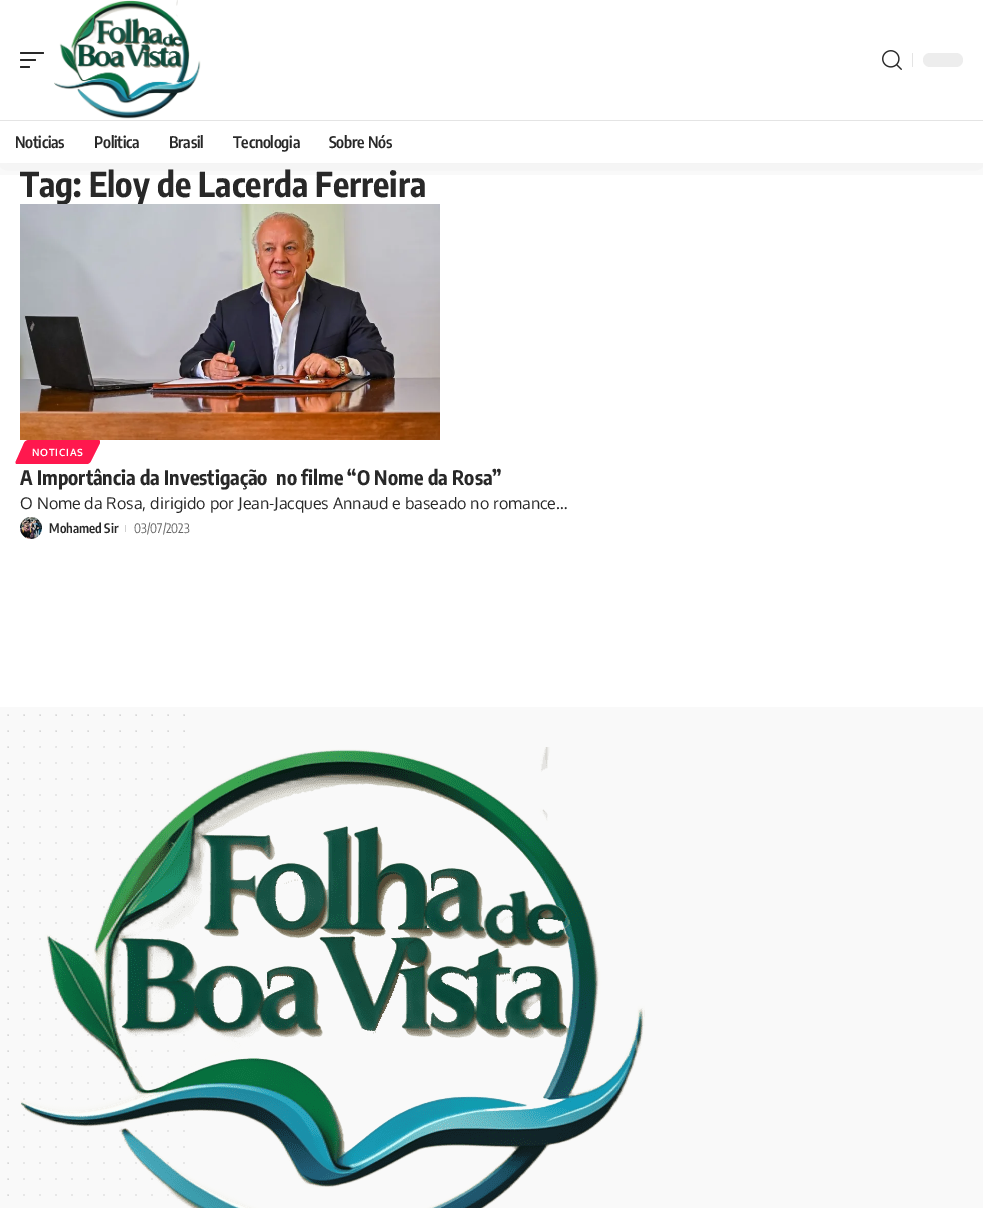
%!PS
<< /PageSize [983 1208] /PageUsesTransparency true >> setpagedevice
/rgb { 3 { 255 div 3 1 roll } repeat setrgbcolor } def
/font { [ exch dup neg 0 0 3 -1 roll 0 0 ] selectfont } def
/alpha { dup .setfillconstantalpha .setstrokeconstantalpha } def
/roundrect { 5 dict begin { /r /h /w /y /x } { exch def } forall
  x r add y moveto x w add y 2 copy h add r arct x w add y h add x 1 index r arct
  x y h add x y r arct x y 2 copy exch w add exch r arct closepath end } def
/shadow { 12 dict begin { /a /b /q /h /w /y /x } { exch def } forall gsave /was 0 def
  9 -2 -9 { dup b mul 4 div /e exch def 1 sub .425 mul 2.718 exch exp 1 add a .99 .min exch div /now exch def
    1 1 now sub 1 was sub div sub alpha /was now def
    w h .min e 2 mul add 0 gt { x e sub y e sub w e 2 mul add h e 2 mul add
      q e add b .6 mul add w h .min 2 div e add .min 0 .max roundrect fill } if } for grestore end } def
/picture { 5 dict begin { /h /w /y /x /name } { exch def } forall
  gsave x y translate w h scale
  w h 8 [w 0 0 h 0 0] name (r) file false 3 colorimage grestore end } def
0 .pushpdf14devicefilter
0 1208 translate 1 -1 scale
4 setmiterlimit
255 255 255 rgb
0 0 983 1208 rectfill
255 24 78 rgb
29 440 moveto 98 440 lineto 100 440 100 441 100 443 curveto 91 461 lineto 90 463 88 464 87 464 curveto 17 464 lineto 16 464 15 463 16 461 curveto 24 443 lineto 25 441 27 440 29 440 curveto closepath fill
(img/4.rgb) 20 517 22 22 picture
209 209 209 rgb
125 525 1 7 rectfill
249 249 249 rgb
0 707 983 501 rectfill
207 207 207 rgb
1.5 setlinewidth
1 setlinecap
[0 16] 0 setdash
24 715 moveto 24 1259.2 lineto stroke
40 715 moveto 40 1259.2 lineto stroke
56 715 moveto 56 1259.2 lineto stroke
72 715 moveto 72 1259.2 lineto stroke
88 715 moveto 88 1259.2 lineto stroke
104 715 moveto 104 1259.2 lineto stroke
120 715 moveto 120 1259.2 lineto stroke
136 715 moveto 136 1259.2 lineto stroke
152 715 moveto 152 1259.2 lineto stroke
168 715 moveto 168 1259.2 lineto stroke
184 715 moveto 184 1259.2 lineto stroke
(img/5.rgb) 20 747 625 461 picture
8 715 moveto 8 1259.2 lineto stroke
/EncodeSansCondensed-Bold 34 font
40 40 40 rgb
20 197 moveto (Tag: Eloy de Lacerda Ferreira) show
(img/3.rgb) 20 204 420 236 picture
gsave
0 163 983 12 rectclip
0 0 0 rgb
0 4 983 163 0 15 0.07 shadow
grestore
/EncodeSansCondensed-SemiBold 16 font
329 148 moveto -0.25 0 (Sobre Nós) ashow
233 148 moveto -0.25 0 (Tecnologia) ashow
169 148 moveto -0.25 0 (Brasil) ashow
94 148 moveto -0.25 0 (Politica) ashow
15 148 moveto -0.25 0 (Noticias) ashow
228 228 228 rgb
0 120 983 1 rectfill
237 237 237 rgb
923 53 40 14 7 roundrect fill
228 228 228 rgb
912 53 1 14 rectfill
(img/2.rgb) 882 50 20 20 picture
40 40 40 rgb
20 66 10 2 1 roundrect fill
20 59 16 2 1 roundrect fill
20 52 24 2 1 roundrect fill
(img/1.rgb) 54 0 147 119 picture
/Oxygen-Bold 10 font
255 255 255 rgb
32 456 moveto 0.75 0 (NOTICIAS) ashow
/EncodeSansCondensed-Bold 20 font
40 40 40 rgb
20 485 moveto (A Importância da Investigação  no filme “O Nome da Rosa”) show
/Oxygen-Regular 16 font
20 509 moveto (O Nome da Rosa, dirigido por Jean-Jacques Annaud e baseado no romance…) show
/EncodeSansCondensed-SemiBold 13 font
49 533 moveto (Mohamed Sir) show
/EncodeSansCondensed-Regular 13 font
102 102 102 rgb
134 533 moveto (03/07/2023) show
.poppdf14devicefilter showpage
